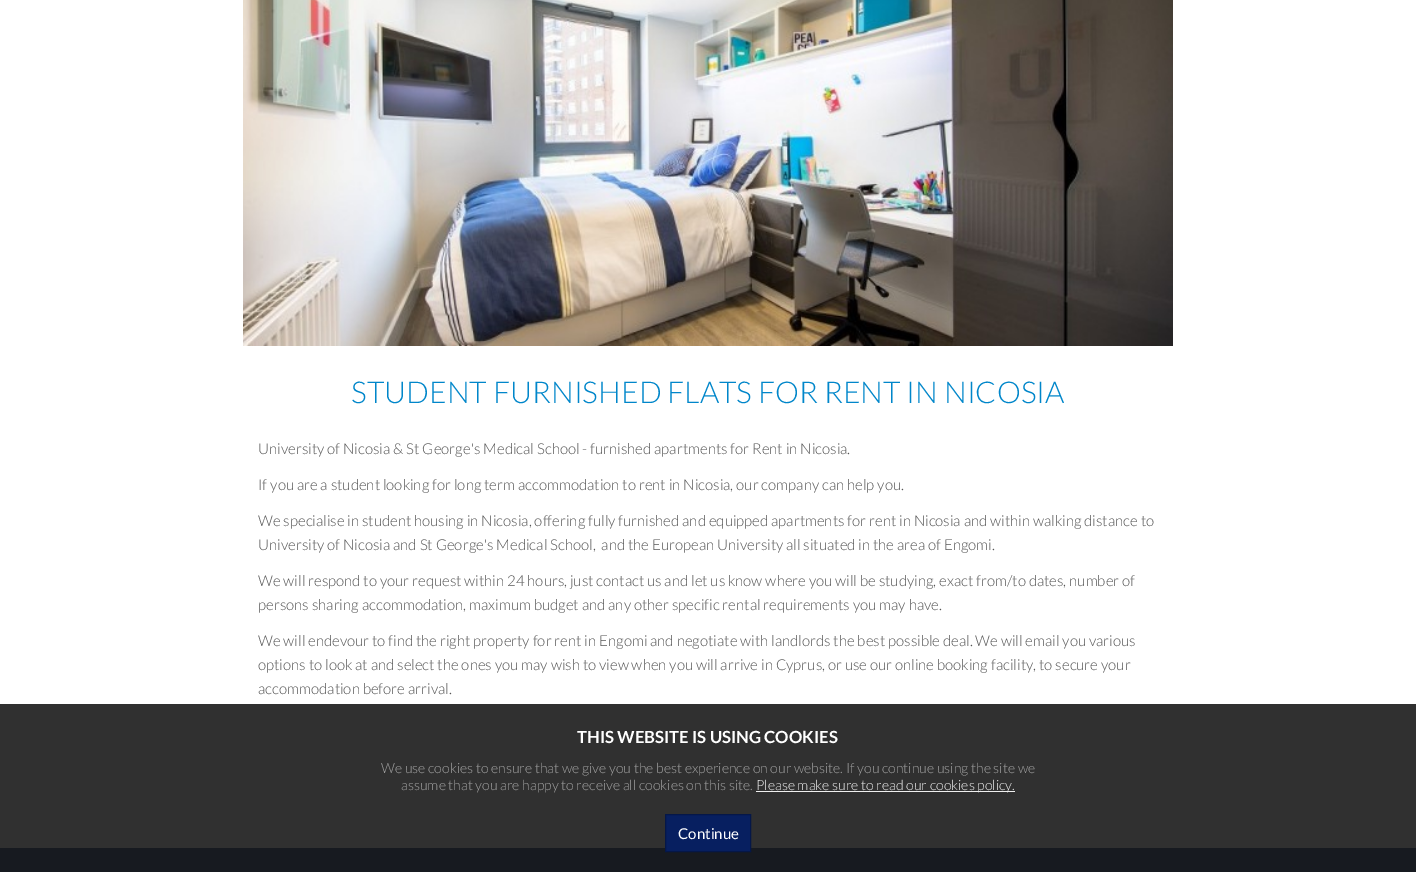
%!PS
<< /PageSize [1416 872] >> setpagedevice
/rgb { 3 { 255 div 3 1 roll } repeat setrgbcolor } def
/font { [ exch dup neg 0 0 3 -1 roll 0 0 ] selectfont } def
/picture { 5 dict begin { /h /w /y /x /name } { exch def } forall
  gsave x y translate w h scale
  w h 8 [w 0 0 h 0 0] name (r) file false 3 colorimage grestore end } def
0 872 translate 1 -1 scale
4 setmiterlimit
255 255 255 rgb
0 0 1416 872 rectfill
48 48 48 rgb
0 704 1416 144 rectfill
(img/1.rgb) 243 0 930 346 picture
239 239 239 rgb
756 791 259 1 rectfill
23 26 32 rgb
0 848 1416 24 rectfill
7 31 96 rgb
665.5 814.5 moveto 750.5 814.5 lineto 750.5 851.5 lineto 665.5 851.5 lineto closepath gsave fill grestore
5 23 72 rgb
stroke
/Lato-Light 30 font
0 134 202 rgb
351 403 moveto (STUDENT FURNISHED FLATS FOR RENT IN NICOSIA) show
/Lato-Light 15 font
85 85 85 rgb
[
  [(University of Nicosia & St George's Medical School - furnished apartments for Rent in Nicosia.) 258 454]
  [(If you are a student looking for long term accommodation to rent in Nicosia, our company can help you.) 258 490]
  [(We specialise in student housing in Nicosia, offering fully furnished and equipped apartments for rent in Nicosia and within walking distance to) 258 526]
  [(University of Nicosia and St George's Medical School,  and the European University all situated in the area of Engomi.) 258 550]
  [(We will respond to your request within 24 hours, just contact us and let us know where you will be studying, exact from/to dates, number of) 258 586]
  [(persons sharing accommodation, maximum budget and any other specific rental requirements you may have.) 258 610]
  [(We will endevour to find the right property for rent in Engomi and negotiate with landlords the best possible deal. We will email you various) 258 646]
  [(options to look at and select the ones you may wish to view when you will arrive in Cyprus, or use our online booking facility, to secure your) 258 670]
  [(accommodation before arrival.) 258 694]
] { aload pop moveto show } forall
/Lato-Bold 16.75 font
255 255 255 rgb
577 743 moveto (THIS WEBSITE IS USING COOKIES) show
/Lato-Light 14 font
162 162 162 rgb
381 773 moveto (We use cookies to ensure that we give you the best experience on our website. If you continue using the site we) show
401 790 moveto (assume that you are happy to receive all cookies on this site.) show
239 239 239 rgb
756 790 moveto (Please make sure to read our cookies policy.) show
/Lato-Regular 15 font
255 255 255 rgb
678 839 moveto (Continue) show
showpage
